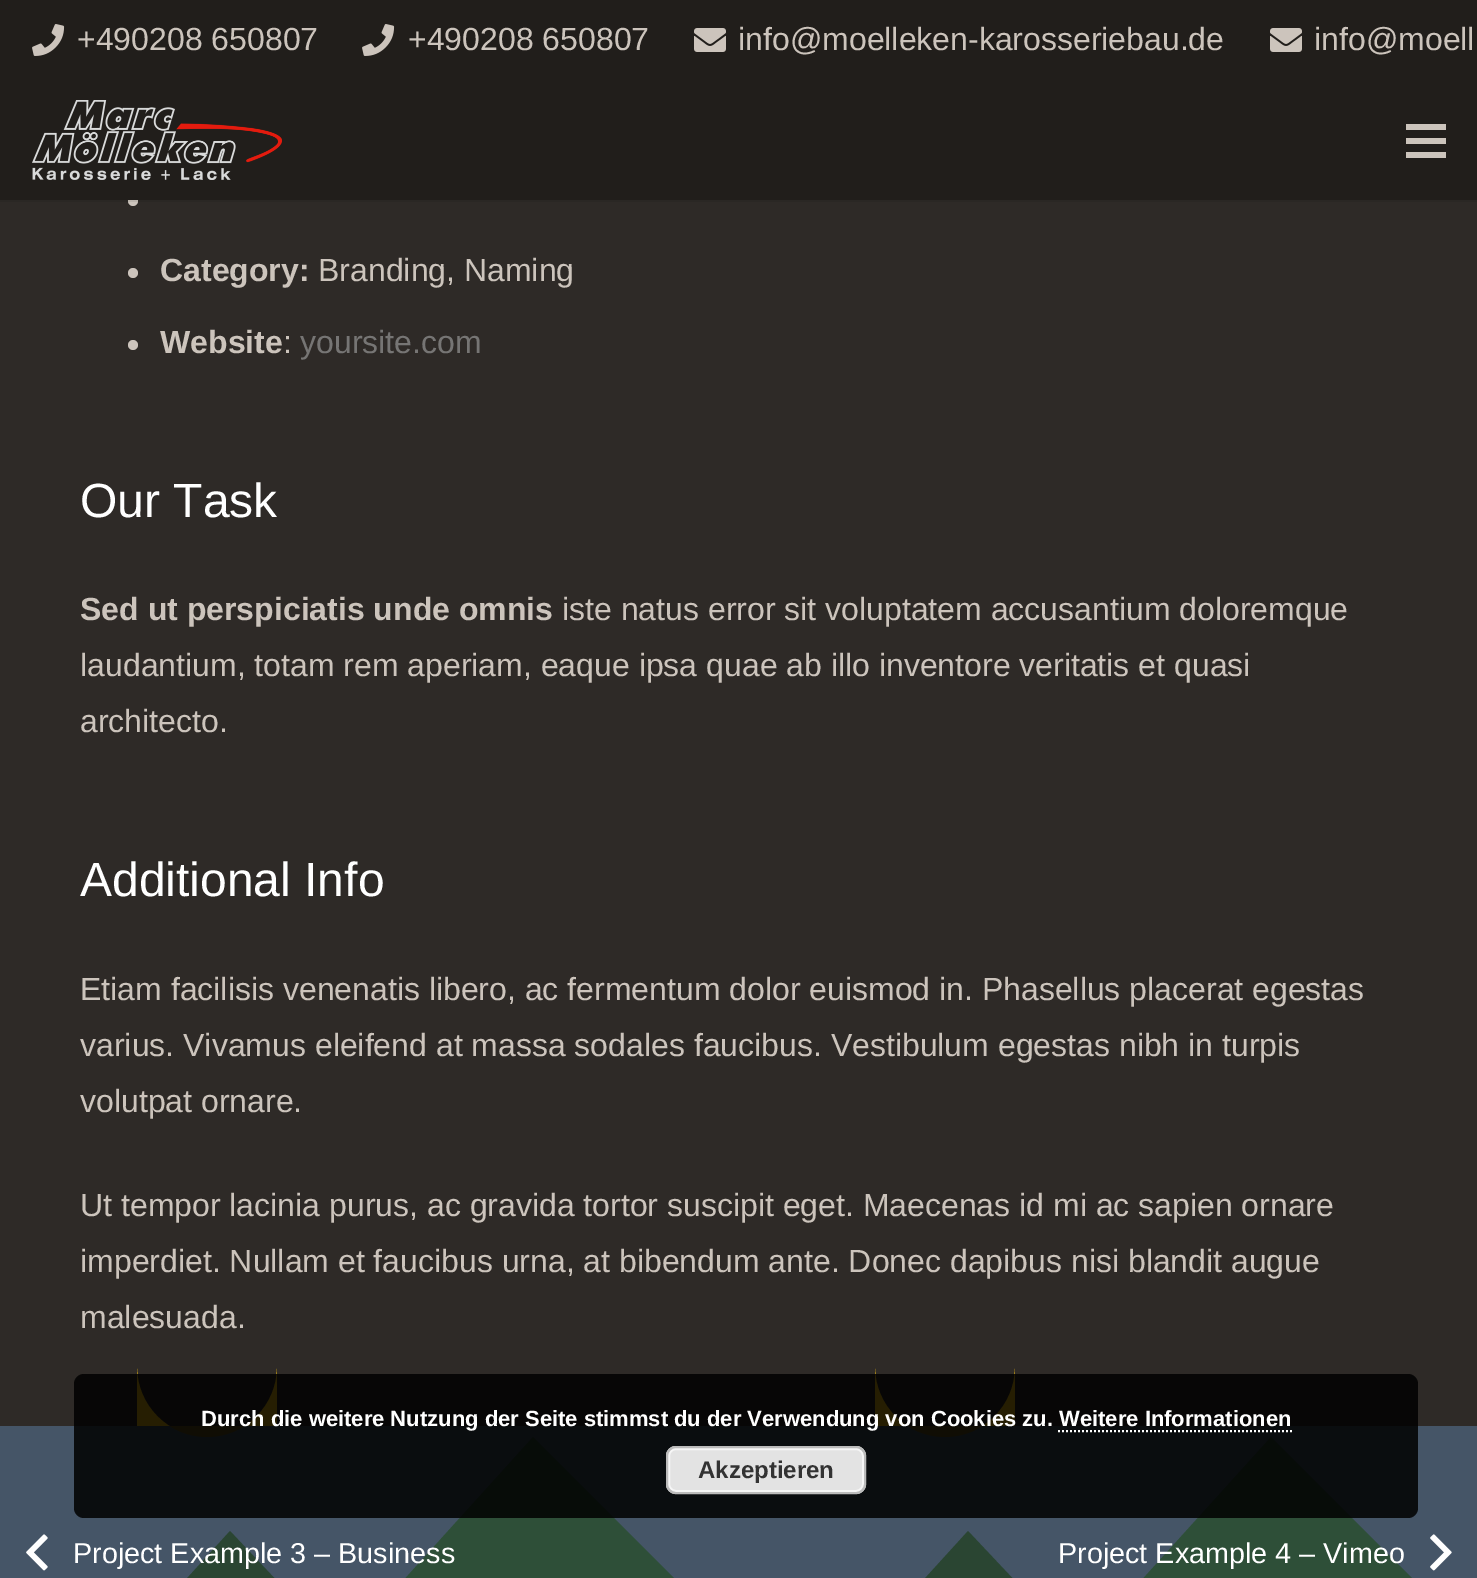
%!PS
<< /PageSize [1477 1578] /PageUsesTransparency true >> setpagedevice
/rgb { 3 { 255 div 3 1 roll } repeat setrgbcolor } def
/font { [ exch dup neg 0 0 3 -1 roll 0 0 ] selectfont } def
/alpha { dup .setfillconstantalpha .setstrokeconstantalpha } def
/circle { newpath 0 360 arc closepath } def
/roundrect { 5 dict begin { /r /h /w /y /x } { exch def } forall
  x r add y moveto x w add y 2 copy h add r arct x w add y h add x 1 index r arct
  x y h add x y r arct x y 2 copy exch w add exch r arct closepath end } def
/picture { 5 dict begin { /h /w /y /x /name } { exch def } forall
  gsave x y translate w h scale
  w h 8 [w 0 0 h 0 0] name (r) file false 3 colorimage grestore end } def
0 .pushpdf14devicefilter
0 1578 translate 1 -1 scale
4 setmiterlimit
46 42 39 rgb
0 0 1477 1578 rectfill
204 196 188 rgb
133 201 5 circle fill
0.08 alpha
0 0 0 rgb
0 200 1477 2 rectfill
1 alpha
33 30 27 rgb
0 0 1477 200 rectfill
(img/1.rgb) 32 100 250 80 picture
[
  [1406 138 40 6 204 196 188]
  [1406 124 40 6 204 196 188]
  [1406 152 40 6 204 196 188]
] { aload pop rgb rectfill } forall
(img/2.rgb) 32 24 33 32 picture
(img/2.rgb) 362 24 33 32 picture
(img/3.rgb) 694 28 32 24 picture
(img/3.rgb) 1270 28 32 24 picture
133 273 5 circle fill
133 345 5 circle fill
145 191 244 rgb
0 1426 1477 152 rectfill
64 145 90 rgb
603 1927 moveto -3 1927 lineto -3 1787 lineto 230 1531 lineto closepath fill
76 173 107 rgb
743 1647 moveto 743 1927 lineto 90 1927 lineto 533 1437 lineto closepath fill
255 201 15 rgb
137 1426 moveto 277 1426 lineto 277 1367 lineto 277 1405.5 245.5 1437 207 1437 curveto 168.5 1437 137 1405.5 137 1367 curveto closepath fill
0.66 alpha
30 30 30 rgb
0 1426 740 152 rectfill
1 alpha
(img/4.rgb) 26 1534 22 37 picture
64 145 90 rgb
1341 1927 moveto 735 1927 lineto 735 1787 lineto 968 1531 lineto closepath fill
76 173 107 rgb
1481 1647 moveto 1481 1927 lineto 828 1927 lineto 1271 1437 lineto closepath fill
255 201 15 rgb
875 1426 moveto 1015 1426 lineto 1015 1367 lineto 1015 1405.5 983.5 1437 945 1437 curveto 906.5 1437 875 1405.5 875 1367 curveto closepath fill
0.66 alpha
30 30 30 rgb
740 1426 737 152 rectfill
1 alpha
(img/5.rgb) 1430 1534 22 37 picture
0.85 alpha
0 0 0 rgb
74 1374 1344 144 10 roundrect fill
1 alpha
255 255 255 rgb
2 setlinewidth
[2 2] 0 setdash
1058 1431 moveto 1292 1431 lineto stroke
227 227 227 rgb
666 1446 200 48 10 roundrect fill
246 246 246 rgb
[] 0 setdash
669 1449 194 42 7 roundrect stroke
187 187 187 rgb
667 1447 198 46 9 roundrect stroke
/LiberationSans-Regular 32 font
204 196 188 rgb
[
  [(+490208 650807) 77 50]
  [(+490208 650807) 408 50]
  [(info@moelleken-karosseriebau.de) 738 50]
  [(info@moell) 1314 50]
] { aload pop moveto show } forall
/LiberationSans-Bold 32 font
160 281 moveto (Category:) show
/LiberationSans-Regular 32 font
318 281 moveto (Branding, Naming) show
/LiberationSans-Bold 32 font
160 353 moveto (Website) show
/LiberationSans-Regular 32 font
283 353 moveto (:) show
118 117 116 rgb
300 353 moveto (yoursite.com) show
/LiberationSans-Regular 48 font
255 255 255 rgb
80 517 moveto (Our Task) show
/LiberationSans-Bold 32 font
204 196 188 rgb
80 620 moveto (Sed ut perspiciatis unde omnis) show
/LiberationSans-Regular 32 font
[
  [(iste natus error sit voluptatem accusantium doloremque) 562 620]
  [(laudantium, totam rem aperiam, eaque ipsa quae ab illo inventore veritatis et quasi) 80 676]
  [(architecto.) 80 732]
] { aload pop moveto show } forall
/LiberationSans-Regular 48 font
255 255 255 rgb
80 896 moveto (Additional Info) show
/LiberationSans-Regular 32 font
204 196 188 rgb
[
  [(Etiam facilisis venenatis libero, ac fermentum dolor euismod in. Phasellus placerat egestas) 80 1000]
  [(varius. Vivamus eleifend at massa sodales faucibus. Vestibulum egestas nibh in turpis) 80 1056]
  [(volutpat ornare.) 80 1112]
  [(Ut tempor lacinia purus, ac gravida tortor suscipit eget. Maecenas id mi ac sapien ornare) 80 1216]
  [(imperdiet. Nullam et faucibus urna, at bibendum ante. Donec dapibus nisi blandit augue) 80 1272]
  [(malesuada.) 80 1328]
] { aload pop moveto show } forall
/LiberationSans-Regular 28.75 font
255 255 255 rgb
73 1563 moveto (Project Example 3 – Business) show
1058 1563 moveto (Project Example 4 – Vimeo) show
/LiberationSans-Bold 22 font
201 1426 moveto (Durch die weitere Nutzung der Seite stimmst du der Verwendung von Cookies zu. Weitere Informationen) show
/LiberationSans-Bold 24 font
51 51 51 rgb
698 1478 moveto (Akzeptieren) show
.poppdf14devicefilter showpage
